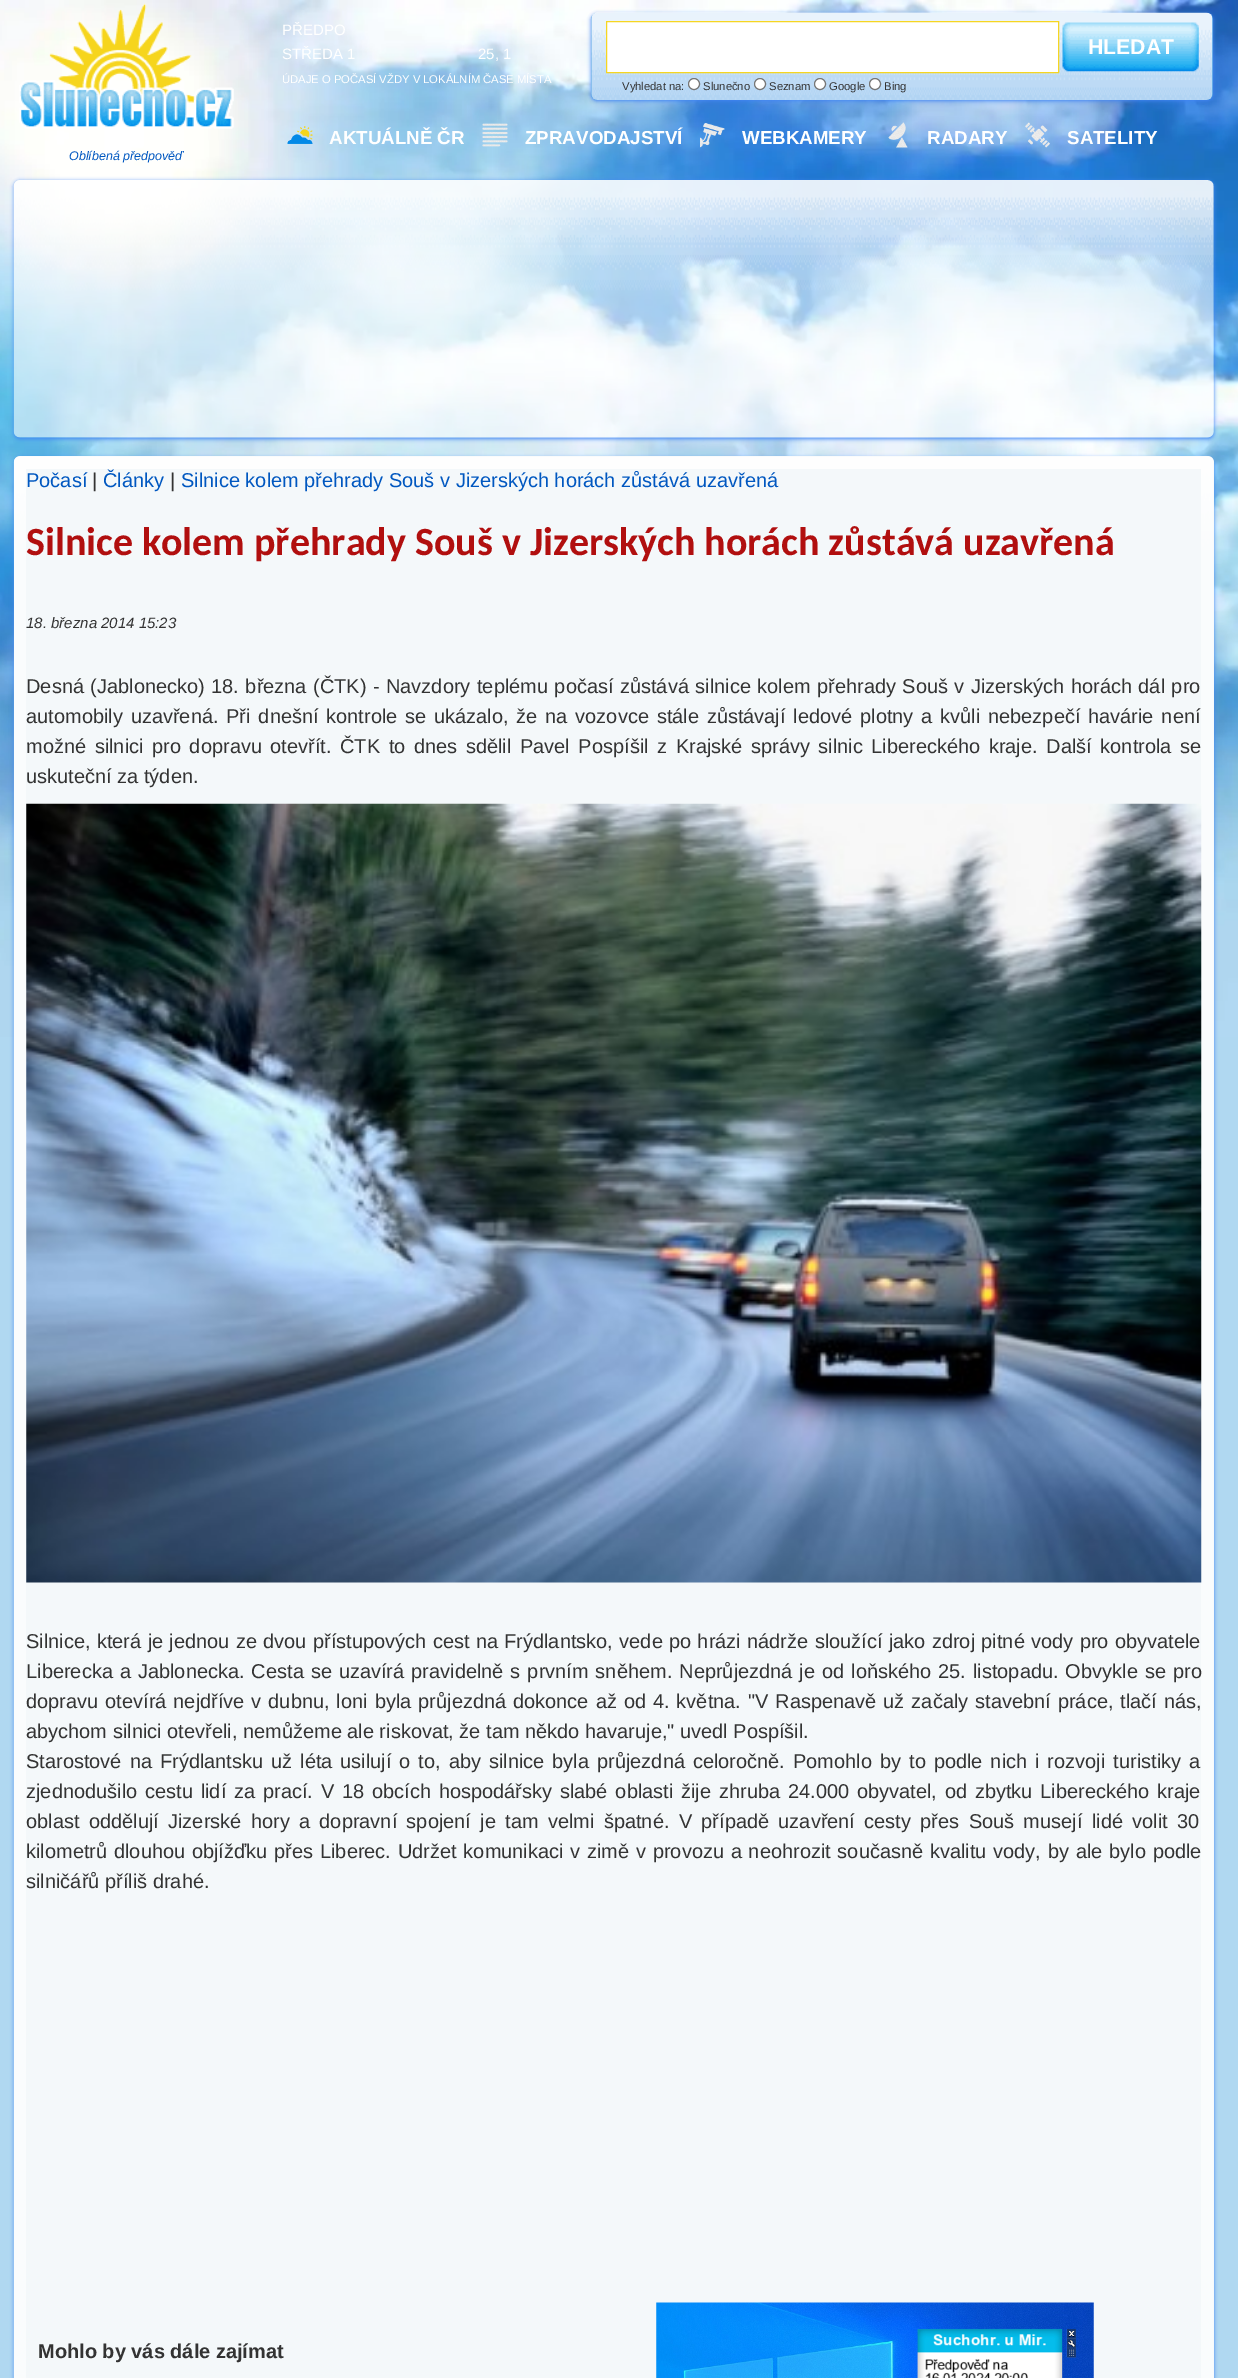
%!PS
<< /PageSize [1238 2378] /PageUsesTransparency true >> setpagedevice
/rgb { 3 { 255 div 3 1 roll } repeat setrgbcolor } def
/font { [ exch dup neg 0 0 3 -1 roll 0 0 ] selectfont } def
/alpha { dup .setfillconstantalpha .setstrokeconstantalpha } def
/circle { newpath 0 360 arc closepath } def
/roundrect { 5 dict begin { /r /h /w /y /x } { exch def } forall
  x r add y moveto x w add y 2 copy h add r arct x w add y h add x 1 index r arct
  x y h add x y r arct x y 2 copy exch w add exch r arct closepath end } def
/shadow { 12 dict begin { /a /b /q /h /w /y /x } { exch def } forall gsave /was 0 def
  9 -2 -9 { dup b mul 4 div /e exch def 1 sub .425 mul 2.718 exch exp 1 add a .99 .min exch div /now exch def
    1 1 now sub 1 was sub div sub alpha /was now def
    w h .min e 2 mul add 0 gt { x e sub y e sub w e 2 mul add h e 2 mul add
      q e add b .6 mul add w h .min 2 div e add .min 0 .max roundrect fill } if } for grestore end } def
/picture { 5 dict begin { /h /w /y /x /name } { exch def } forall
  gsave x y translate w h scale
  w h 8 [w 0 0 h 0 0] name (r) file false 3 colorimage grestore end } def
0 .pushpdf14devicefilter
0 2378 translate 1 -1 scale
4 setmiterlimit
176 216 241 rgb
0 0 1238 2378 rectfill
(img/1.rgb) 0 0 1238 1037 picture
66 133 244 rgb
591 14 622 87 6 2 1 shadow
69 152 227 rgb
591 13 622 87 6 roundrect fill
(img/2.rgb) 591 12 622 88 picture
255 255 255 rgb
606.5 21.5 moveto 1058.5 21.5 lineto 1058.5 72.5 lineto 606.5 72.5 lineto closepath gsave fill grestore
246 214 34 rgb
stroke
(img/3.rgb) 1062 22 137 50 picture
255 255 255 rgb
694 84 5.5 circle gsave fill grestore
118 118 118 rgb
stroke
255 255 255 rgb
760 84 5.5 circle gsave fill grestore
118 118 118 rgb
stroke
255 255 255 rgb
820 84 5.5 circle gsave fill grestore
118 118 118 rgb
stroke
255 255 255 rgb
875 84 5.5 circle gsave fill grestore
118 118 118 rgb
stroke
(img/4.rgb) 287 126 26 18 picture
(img/5.rgb) 482 123 26 24 picture
(img/6.rgb) 700 123 25 25 picture
(img/7.rgb) 888 122 20 26 picture
(img/8.rgb) 1025 122 25 26 picture
(img/9.rgb) 19 3 215 126 picture
gsave
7 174 moveto 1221 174 lineto 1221 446 lineto 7 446 lineto closepath 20 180 moveto 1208 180 lineto 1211.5 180 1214 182.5 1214 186 curveto 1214 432 lineto 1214 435.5 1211.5 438 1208 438 curveto 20 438 lineto 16.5 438 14 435.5 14 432 curveto 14 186 lineto 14 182.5 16.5 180 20 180 curveto closepath eoclip newpath
66 133 244 rgb
14 181 1200 258 6 2 1 shadow
grestore
(img/10.rgb) 13 180 1201 258 picture
66 133 244 rgb
14 458 1200 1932 6 2 1 shadow
244 248 250 rgb
14 456 1200 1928 6 roundrect fill
(img/11.rgb) 13 456 1201 1922 picture
26 469 1175 1909 rectfill
(img/12.rgb) 26 803 1176 780 picture
(img/13.rgb) 656 2302 438 76 picture
/LiberationSans-Regular 15 font
255 255 255 rgb
[
  [(PŘEDPO) 282 35]
  [(STŘEDA 1) 282 59]
  [(25, 1) 478 59]
] { aload pop moveto show } forall
/LiberationSans-Regular 11.25 font
282 83 moveto (ÚDAJE O POČASÍ VŽDY V LOKÁLNÍM ČASE MÍSTA) show
/LiberationSans-Bold 21.25 font
1088 54 moveto (HLEDAT) show
/LiberationSans-Regular 11.25 font
51 51 51 rgb
[
  [(Vyhledat na:) 622 90]
  [(Slunečno) 703 90]
  [(Seznam) 769 90]
  [(Google) 829 90]
  [(Bing) 884 90]
] { aload pop moveto show } forall
/LiberationSans-Bold 18.75 font
255 255 255 rgb
[
  [(AKTUÁLNĚ ČR) 329 144]
  [(ZPRAVODAJSTVÍ) 525 144]
  [(WEBKAMERY) 742 144]
  [(RADARY) 927 144]
  [(SATELITY) 1067 144]
] { aload pop moveto show } forall
/LiberationSans-Italic 12.5 font
0 87 192 rgb
69 160 moveto (Oblíbená předpověď) show
/LiberationSans-Regular 20 font
26 487 moveto (Počasí) show
51 51 51 rgb
92 487 moveto (|) show
0 87 192 rgb
103 487 moveto (Články) show
51 51 51 rgb
170 487 moveto (|) show
0 87 192 rgb
181 487 moveto (Silnice kolem přehrady Souš v Jizerských horách zůstává uzavřená) show
/Carlito-Bold 40 font
177 15 15 rgb
26 555 moveto (Silnice kolem přehrady Souš v Jizerských horách zůstává uzavřená) show
/LiberationSans-Italic 15 font
51 51 51 rgb
26 628 moveto (18. března 2014 15:23) show
/LiberationSans-Regular 20 font
26 693 moveto 0.9 0 32 (Desná \(Jablonecko\) 18. března \(ČTK\) - Navzdory teplému počasí zůstává silnice kolem přehrady Souš v Jizerských horách dál pro) widthshow
26 723 moveto 2.25 0 32 (automobily uzavřená. Při dnešní kontrole se ukázalo, že na vozovce stále zůstávají ledové plotny a kvůli nebezpečí havárie není) widthshow
26 753 moveto 3 0 32 (možné silnici pro dopravu otevřít. ČTK to dnes sdělil Pavel Pospíšil z Krajské správy silnic Libereckého kraje. Další kontrola se) widthshow
26 783 moveto (uskuteční za týden.) show
26 1648 moveto 0.75 0 32 (Silnice, která je jednou ze dvou přístupových cest na Frýdlantsko, vede po hrázi nádrže sloužící jako zdroj pitné vody pro obyvatele) widthshow
26 1678 moveto 1.4 0 32 (Liberecka a Jablonecka. Cesta se uzavírá pravidelně s prvním sněhem. Neprůjezdná je od loňského 25. listopadu. Obvykle se pro) widthshow
26 1708 moveto 1.4 0 32 (dopravu otevírá nejdříve v dubnu, loni byla průjezdná dokonce až od 4. května. "V Raspenavě už začaly stavební práce, tlačí nás,) widthshow
26 1738 moveto (abychom silnici otevřeli, nemůžeme ale riskovat, že tam někdo havaruje," uvedl Pospíšil.) show
26 1768 moveto 2.4 0 32 (Starostové na Frýdlantsku už léta usilují o to, aby silnice byla průjezdná celoročně. Pomohlo by to podle nich i rozvoji turistiky a) widthshow
26 1798 moveto 2.25 0 32 (zjednodušilo cestu lidí za prací. V 18 obcích hospodářsky slabé oblasti žije zhruba 24.000 obyvatel, od zbytku Libereckého kraje) widthshow
26 1828 moveto 3.75 0 32 (oblast oddělují Jizerské hory a dopravní spojení je tam velmi špatné. V případě uzavření cesty přes Souš musejí lidé volit 30) widthshow
26 1858 moveto 1.2 0 32 (kilometrů dlouhou objížďku přes Liberec. Udržet komunikaci v zimě v provozu a neohrozit současně kvalitu vody, by ale bylo podle) widthshow
26 1888 moveto (silničářů příliš drahé.) show
/LiberationSans-Bold 20 font
38 2358 moveto (Mohlo by vás dále zajímat) show
.poppdf14devicefilter showpage
